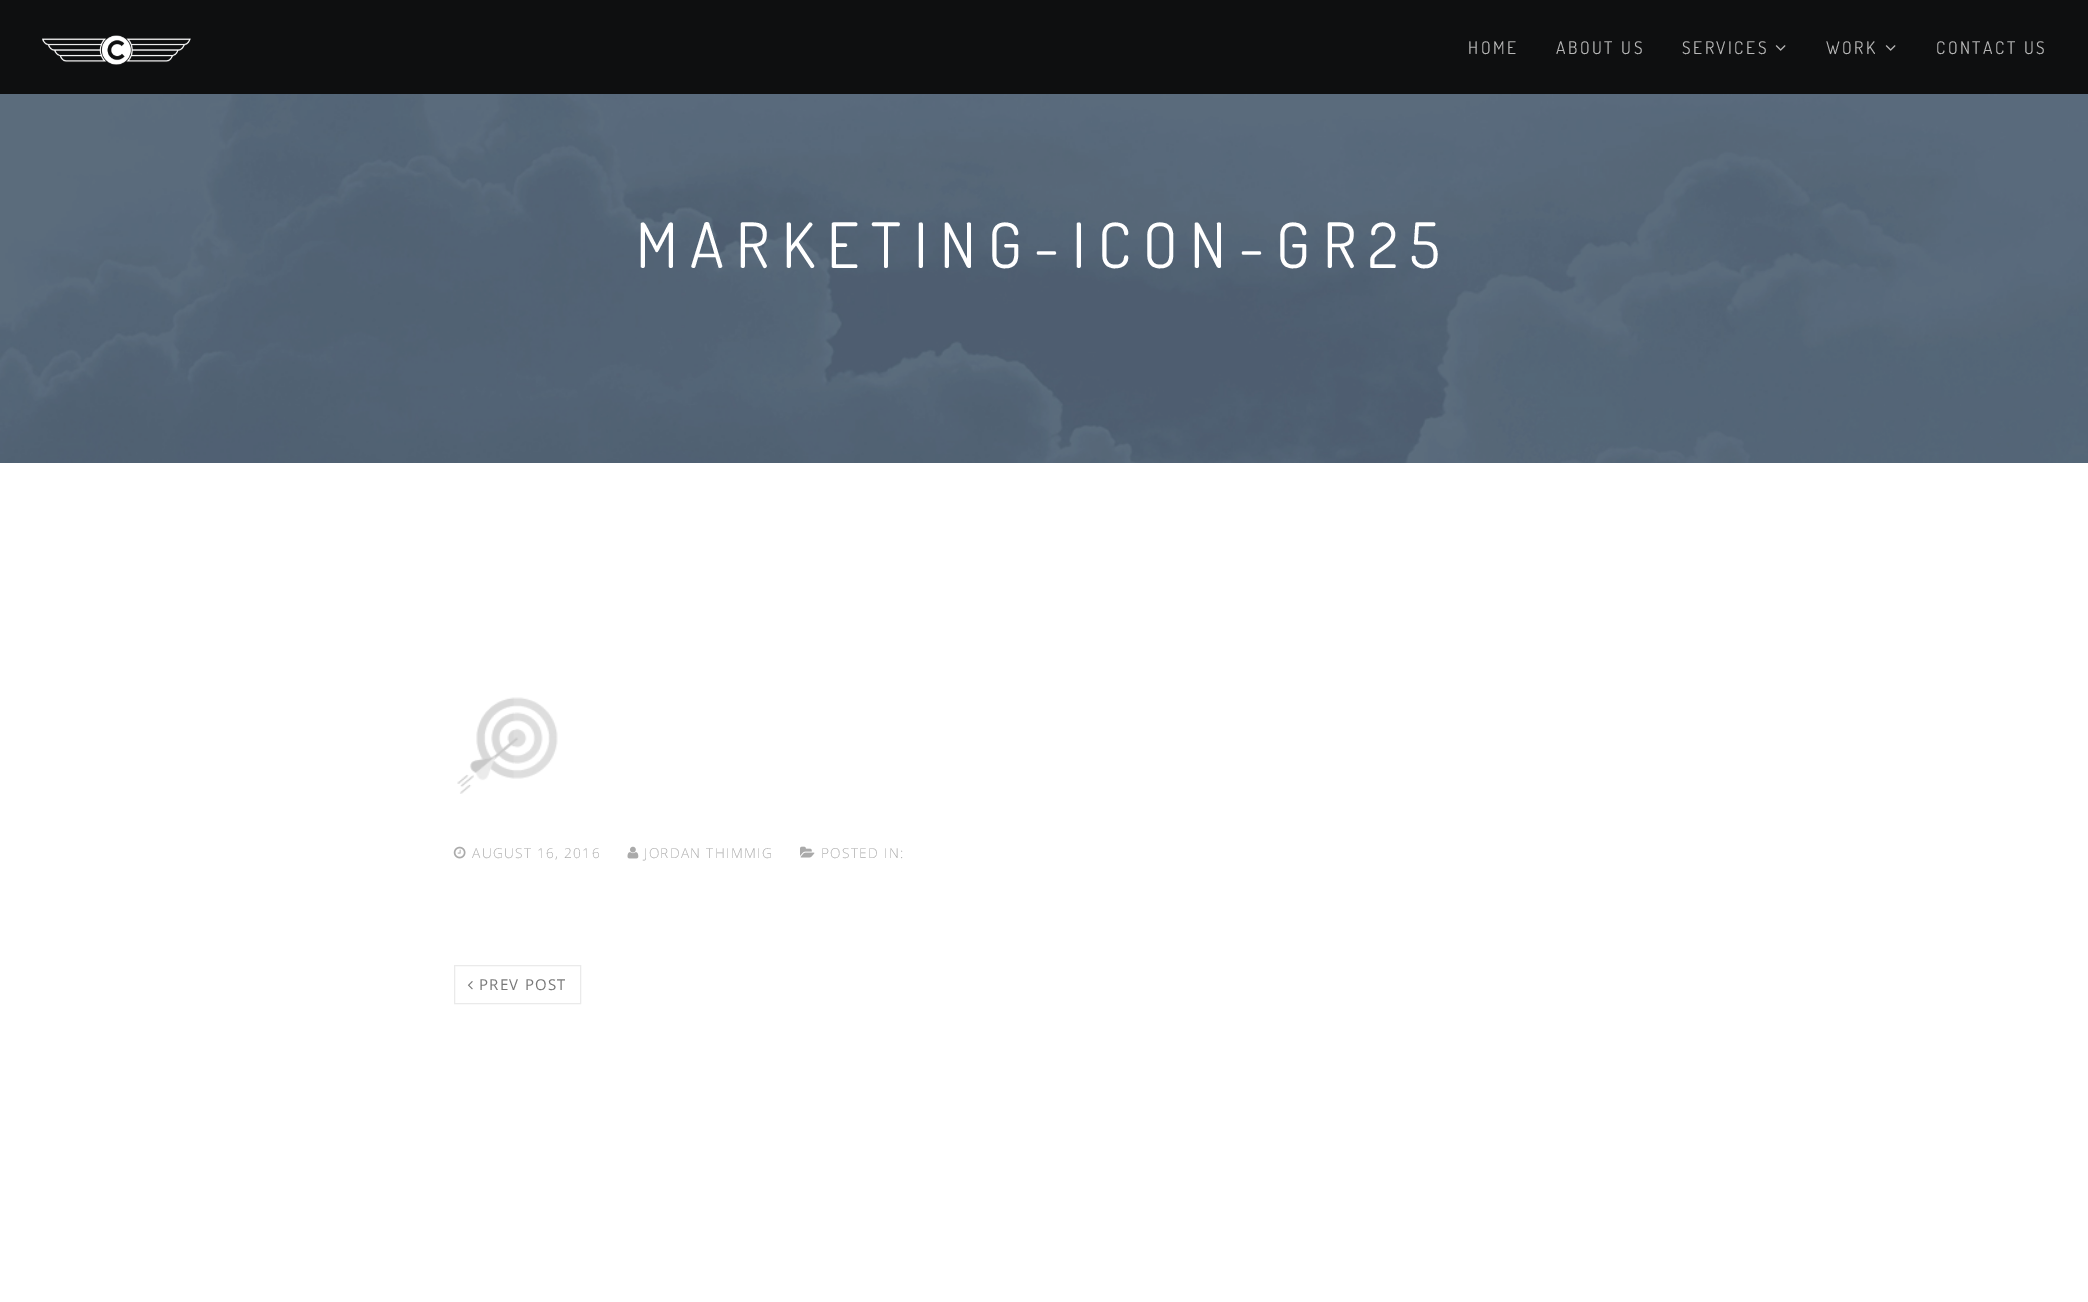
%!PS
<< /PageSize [2088 1302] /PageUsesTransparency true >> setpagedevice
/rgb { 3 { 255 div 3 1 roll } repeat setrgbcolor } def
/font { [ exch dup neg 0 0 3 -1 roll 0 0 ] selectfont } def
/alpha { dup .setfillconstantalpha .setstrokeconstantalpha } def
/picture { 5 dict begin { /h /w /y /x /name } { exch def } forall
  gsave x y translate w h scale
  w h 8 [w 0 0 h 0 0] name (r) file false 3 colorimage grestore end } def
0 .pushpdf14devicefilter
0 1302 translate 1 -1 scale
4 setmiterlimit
255 255 255 rgb
0 0 2088 1302 rectfill
(img/3.rgb) 0 0 2088 463 picture
0.95 alpha
10 10 10 rgb
0 0 2088 94 rectfill
1 alpha
(img/1.rgb) 42 35 149 30 picture
(img/2.rgb) 1775 45 11 6 picture
(img/2.rgb) 1885 45 11 6 picture
(img/4.rgb) 457 697 101 97 picture
(img/5.rgb) 453 846 13 13 picture
(img/6.rgb) 627 846 12 13 picture
(img/7.rgb) 800 846 15 12 picture
234 234 234 rgb
454.5 965.5 126 38 rectstroke
(img/8.rgb) 467 981 6 9 picture
/Dosis-Regular 17.5 font
183 183 183 rgb
1468 54 moveto 2.5 0 (HOME) ashow
1556 54 moveto 2.5 0 (ABOUT US) ashow
1682 54 moveto 2.5 0 (SERVICES) ashow
1826 54 moveto 2.5 0 (WORK) ashow
1936 54 moveto 2.5 0 (CONTACT US) ashow
/Dosis-Regular 62.5 font
255 255 255 rgb
636 268 moveto 12.5 0 (MARKETING-ICON-GR25) ashow
/OpenSans-Light 13.75 font
170 170 170 rgb
472 858 moveto 1.25 0 (AUGUST 16, 2016) ashow
644 858 moveto 1.25 0 (JORDAN THIMMIG) ashow
821 858 moveto 1.25 0 (POSTED IN:) ashow
/OpenSans-Regular 15 font
119 119 119 rgb
479 990 moveto 1.25 0 (PREV POST) ashow
.poppdf14devicefilter showpage
